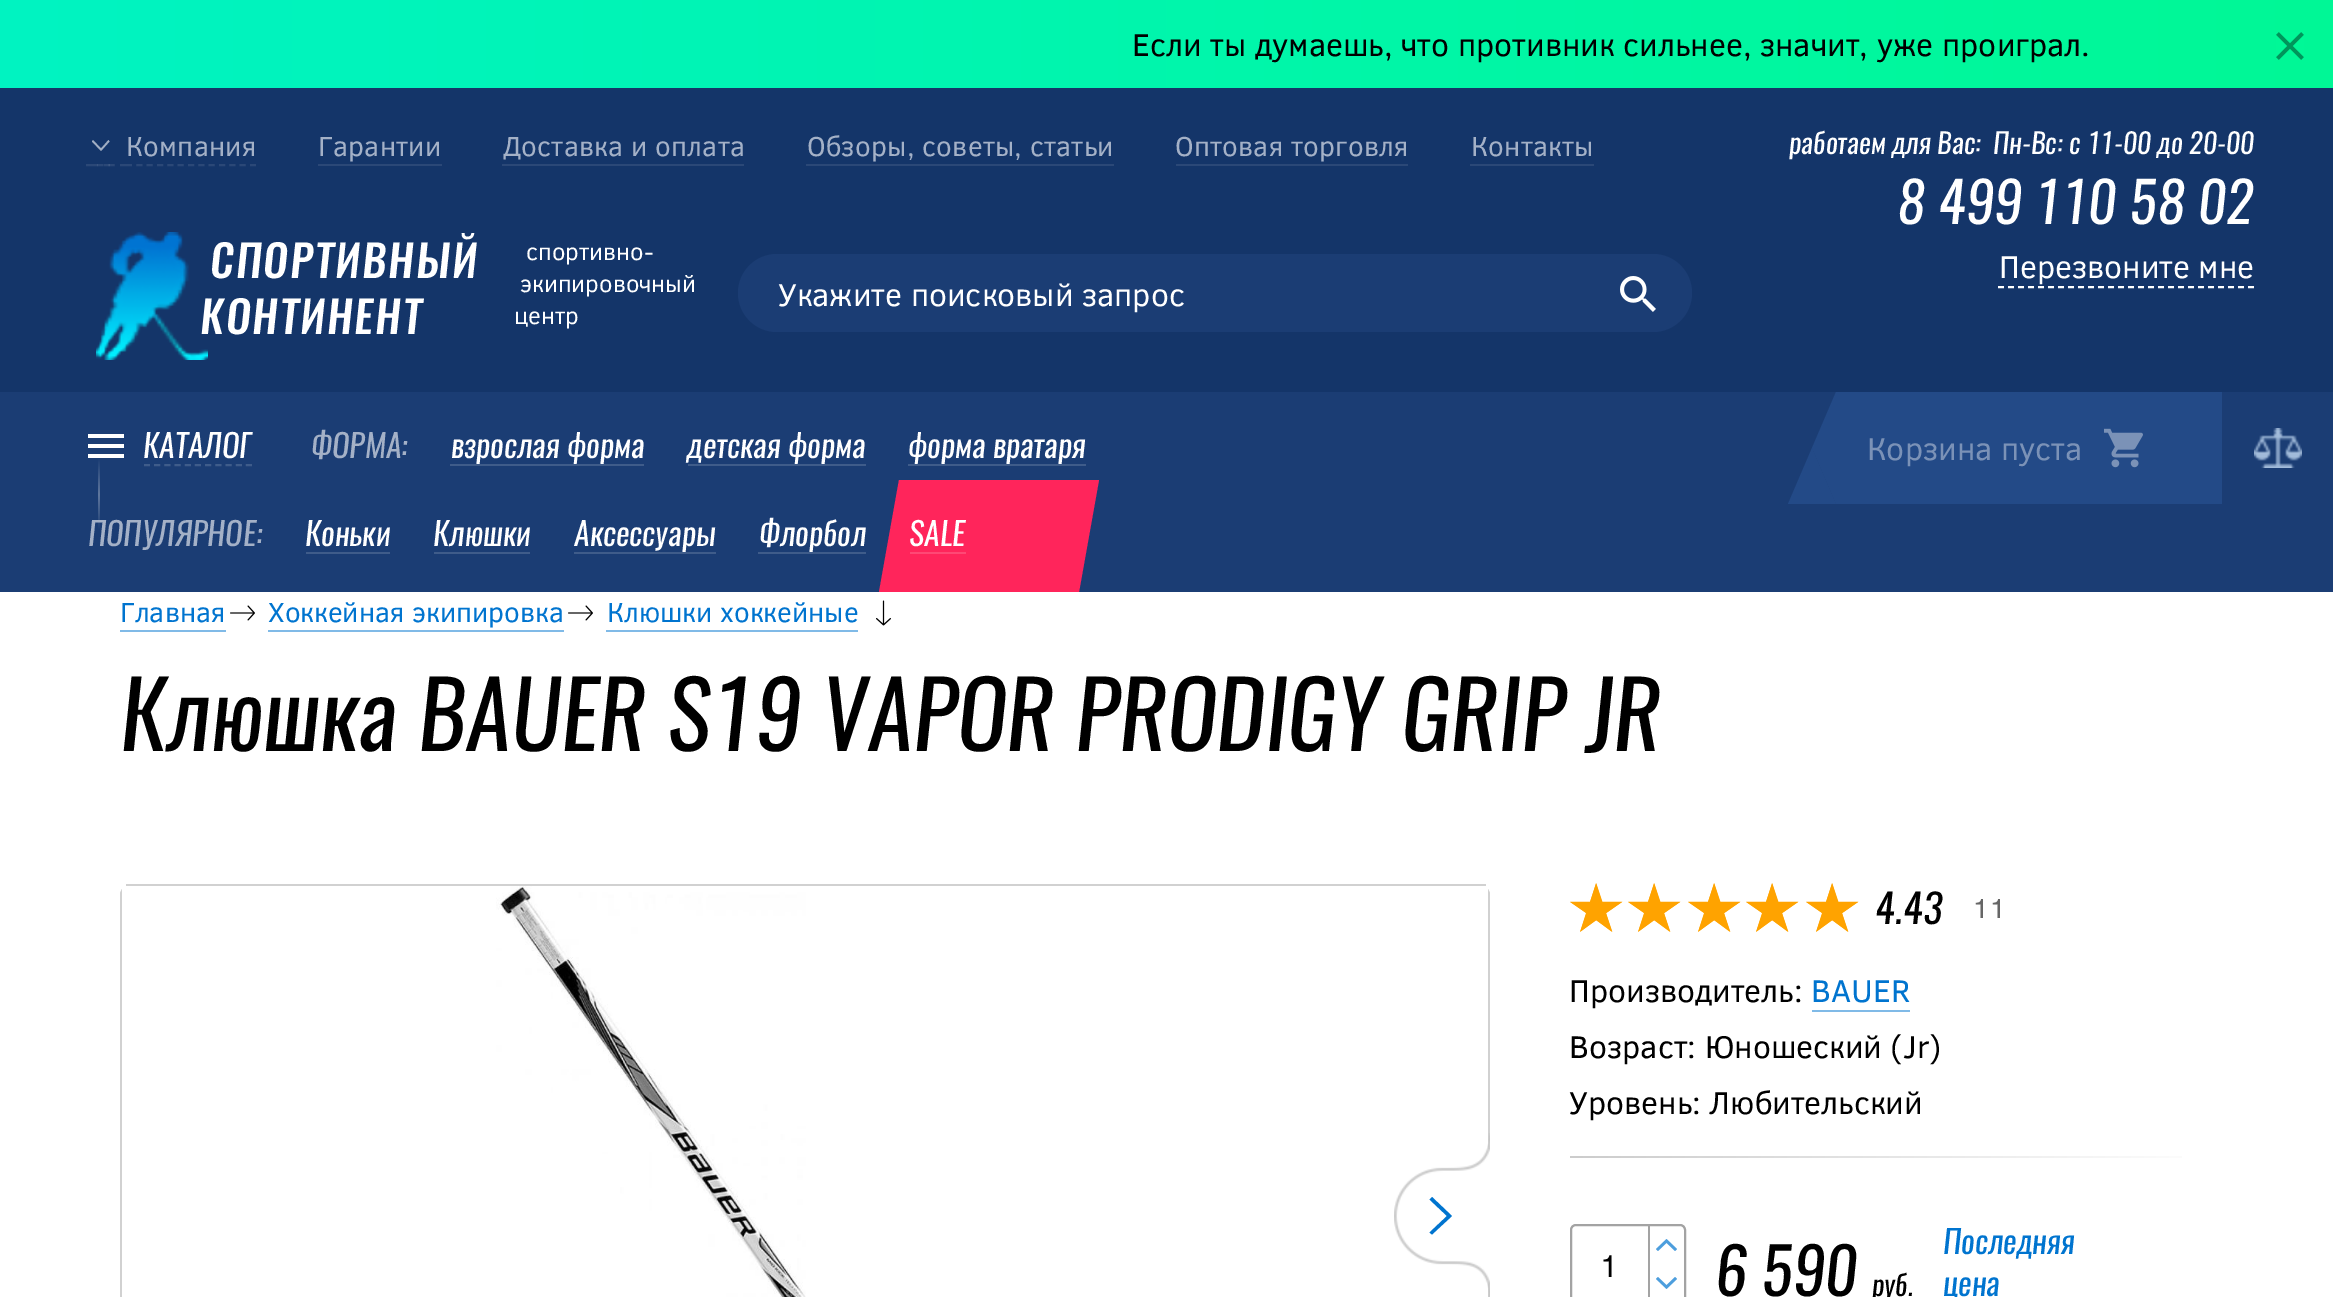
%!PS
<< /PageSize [2333 1297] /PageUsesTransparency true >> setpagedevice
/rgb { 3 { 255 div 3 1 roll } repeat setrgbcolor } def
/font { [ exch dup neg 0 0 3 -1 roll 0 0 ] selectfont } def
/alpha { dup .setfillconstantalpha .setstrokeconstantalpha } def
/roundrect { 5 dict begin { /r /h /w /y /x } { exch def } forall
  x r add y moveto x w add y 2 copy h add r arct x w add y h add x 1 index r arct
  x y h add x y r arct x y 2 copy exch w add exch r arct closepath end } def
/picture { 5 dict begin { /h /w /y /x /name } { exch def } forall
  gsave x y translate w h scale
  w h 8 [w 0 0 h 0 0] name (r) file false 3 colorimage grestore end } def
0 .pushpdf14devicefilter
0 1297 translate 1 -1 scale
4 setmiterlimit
255 255 255 rgb
0 0 2333 1297 rectfill
gsave 0 0 moveto 2333 0 lineto 2333 88 lineto 0 88 lineto closepath clip newpath
<< /ShadingType 2 /ColorSpace /DeviceRGB /Coords [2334 44 0 44] /Extend [true true] /Function << /FunctionType 2 /Domain [0 1] /C0 [0 0.973 0.588] /C1 [0 0.953 0.761] /N 1 >> >> shfill grestore
(img/1.rgb) 2276 32 28 28 picture
20 53 105 rgb
0 88 2333 304 rectfill
255 255 255 rgb
2 setlinewidth
[6 4] 0 setdash
1998 287 moveto 2254 287 lineto stroke
27 61 116 rgb
738 254 954 78 39 roundrect fill
(img/2.rgb) 1620 276 36 36 picture
43 72 119 rgb
[6 5.34] 0 setdash
86 165 moveto 126 165 lineto stroke
0.16 alpha
161 174 195 rgb
[] 0 setdash
92 165 moveto 98 165 lineto 104 165 moveto 110 165 lineto stroke
1 alpha
43 72 119 rgb
[6 4.34] 0 setdash
126 165 moveto 256 165 lineto stroke
161 174 195 rgb
108.5 140 moveto 109.5 141.5 lineto 101 151 lineto 92 141.5 lineto 93 140 lineto 101 148.5 lineto closepath fill
[
  [318 164 124 2 43 72 119]
  [502 164 242 2 43 72 119]
  [806 164 308 2 43 72 119]
  [1176 164 232 2 43 72 119]
  [1470 164 124 2 43 72 119]
  [0 392 2333 200 27 61 116]
  [88 434 36 4 255 255 255]
  [88 444 36 4 255 255 255]
  [88 454 36 4 255 255 255]
] { aload pop rgb rectfill } forall
63 92 138 rgb
[6 4.2] 0 setdash
144 465 moveto 252 465 lineto stroke
[
  [450 464 194 2 63 92 138]
  [688 464 178 2 63 92 138]
  [908 464 178 2 63 92 138]
] { aload pop rgb rectfill } forall
gsave 98 458 moveto 100 458 lineto 100 530 lineto 98 530 lineto closepath clip newpath
<< /ShadingType 2 /ColorSpace /DeviceRGB /Coords [99 458 99 530] /Extend [true true] /Function << /FunctionType 3 /Domain [0 1] /Functions [<< /FunctionType 2 /Domain [0 1] /C0 [0.106 0.239 0.455] /C1 [0.373 0.467 0.62] /N 1 >> << /FunctionType 2 /Domain [0 1] /C0 [0.373 0.467 0.62] /C1 [0.106 0.239 0.455] /N 1 >>] /Bounds [0.51] /Encode [0 1 0 1] >> >> shfill grestore
[
  [306 552 84 2 63 92 138]
  [434 552 96 2 63 92 138]
  [574 552 142 2 63 92 138]
  [758 552 108 2 63 92 138]
] { aload pop rgb rectfill } forall
255 37 91 rgb
899 480 moveto 1099 480 lineto 1079 592 lineto 879 592 lineto closepath fill
255 72 117 rgb
910 552 56 2 rectfill
35 74 135 rgb
1836 392 386 112 rectfill
1836 392 moveto 1836 504 lineto 1812 448 lineto closepath fill
1836 504 moveto 1788 504 lineto 1812 448 lineto closepath fill
(img/4.rgb) 2104 428 39 40 picture
(img/5.rgb) 2254 428 48 40 picture
128 186 231 rgb
120 630 106 2 rectfill
(img/6.rgb) 230 605 25 16 picture
268 630 296 2 rectfill
(img/6.rgb) 568 605 25 16 picture
606 630 252 2 rectfill
(img/7.rgb) 876 600 15 26 picture
209 209 209 rgb
126 884 1360 2 rectfill
120 894 moveto 120 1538 lineto 120 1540 121 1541 122 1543 curveto 122 889 lineto 121 891 120 892 120 894 curveto closepath fill
(img/8.rgb) 496 886 310 411 picture
1490 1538 moveto 1490 894 lineto 1490 892 1489 891 1488 889 curveto 1488 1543 lineto 1489 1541 1490 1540 1490 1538 curveto closepath fill
(img/9.rgb) 1394 1133 96 164 picture
0 116 207 rgb
1429.5 1232.5 moveto 1447 1216 lineto 1429.5 1199.5 lineto 1432 1197 lineto 1452 1216 lineto 1432 1234.5 lineto closepath fill
255 163 0 rgb
1622 902 moveto 1606 913 lineto 1612 932 lineto 1596 920 lineto 1580 932 lineto 1586 913 lineto 1570 902 lineto 1590 902 lineto 1596 883 lineto 1602 902 lineto closepath fill
1680 902 moveto 1664 913 lineto 1670 932 lineto 1654 920 lineto 1638 932 lineto 1644 913 lineto 1628 902 lineto 1648 902 lineto 1654 883 lineto 1660 902 lineto closepath fill
1740 902 moveto 1724 913 lineto 1730 932 lineto 1714 920 lineto 1698 932 lineto 1704 913 lineto 1688 902 lineto 1708 902 lineto 1714 883 lineto 1720 902 lineto closepath fill
1798 902 moveto 1782 913 lineto 1788 932 lineto 1772 920 lineto 1756 932 lineto 1762 913 lineto 1746 902 lineto 1766 902 lineto 1772 883 lineto 1778 902 lineto closepath fill
1858 902 moveto 1842 913 lineto 1848 932 lineto 1832 920 lineto 1816 932 lineto 1822 913 lineto 1806 902 lineto 1826 902 lineto 1832 883 lineto 1838 902 lineto closepath fill
(img/10.rgb) 1570 883 53 49 picture
(img/10.rgb) 1628 883 53 49 picture
(img/10.rgb) 1688 883 53 49 picture
(img/10.rgb) 1746 883 53 49 picture
(img/10.rgb) 1806 883 53 49 picture
128 186 231 rgb
1812 1010 98 2 rectfill
gsave 1570 1156 moveto 2182 1156 lineto 2182 1158 lineto 1570 1158 lineto closepath clip newpath
<< /ShadingType 2 /ColorSpace /DeviceRGB /Coords [2214 1157 1570 1157] /Extend [true true] /Function << /FunctionType 2 /Domain [0 1] /C0 [1 1 1] /C1 [0.8 0.8 0.8] /N 1 >> >> shfill grestore
163 163 163 rgb
[] 0 setdash
1571 1225 114 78 5 roundrect stroke
1648 1226 2 71 rectfill
(img/11.rgb) 1656 1239 21 12 picture
(img/12.rgb) 1656 1277 21 12 picture
/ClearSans-Regular 32 font
0 0 0 rgb
1132 56 moveto (Если ты думаешь, что противник сильнее, значит, уже проиграл.) show
/Oswald-Italic 28 font
255 255 255 rgb
1789 154 moveto (работаем для Вас:  Пн-Вс: с 11-00 до 20-00) show
/Oswald-Italic 56 font
1897 224 moveto (8 499 110 58 02) show
/ClearSans-Regular 32 font
1999 278 moveto (Перезвоните мне) show
778 306 moveto (Укажите поисковый запрос) show
/ClearSans-Regular 28 font
164 177 199 rgb
126 156 moveto 0.2 0 (Компания) ashow
318 156 moveto 0.2 0 (Гарантии) ashow
503 156 moveto 0.2 0 (Доставка и оплата) ashow
807 156 moveto 0.2 0 (Обзоры, советы, статьи) ashow
1175 156 moveto 0.2 0 (Оптовая торговля) ashow
1471 156 moveto 0.2 0 (Контакты) ashow
/Oswald-Italic 32 font
255 255 255 rgb
143 458 moveto (КАТАЛОГ) show
164 177 199 rgb
311 458 moveto (ФОРМА:) show
255 255 255 rgb
[
  [(взрослая форма) 451 458]
  [(детская форма) 687 458]
  [(форма вратаря) 908 458]
] { aload pop moveto show } forall
164 177 199 rgb
88 546 moveto (ПОПУЛЯРНОЕ:) show
255 255 255 rgb
[
  [(Коньки) 305 546]
  [(Клюшки) 433 546]
  [(Аксессуары) 574 546]
  [(Флорбол) 759 546]
  [(SALE) 909 546]
] { aload pop moveto show } forall
/Oswald-MediumItalic 44 font
210 278 moveto 2 0 (СПОРТИВНЫЙ) ashow
200 334 moveto 2 0 (КОНТИНЕНТ) ashow
(img/3.rgb) 96 232 112 128 picture
/ClearSans-Regular 24 font
[
  [(cпортивно-) 526 260]
  [(экипировочный) 520 292]
  [(центр) 514 324]
] { aload pop moveto show } forall
/ClearSans-Regular 32 font
123 146 183 rgb
1867 460 moveto (Корзина пуста) show
/ClearSans-Regular 28 font
0 116 207 rgb
[
  [(Главная) 120 622]
  [(Хоккейная экипировка) 268 622]
  [(Клюшки хоккейные) 607 622]
] { aload pop moveto show } forall
/Oswald-Italic 92 font
0 0 0 rgb
120 751 moveto (Клюшка BAUER S19 VAPOR PRODIGY GRIP JR) show
/Oswald-Italic 40 font
1875 924 moveto (4.43) show
/ClearSans-Regular 28 font
102 102 102 rgb
1972 918 moveto (11) show
/ClearSans-Regular 32 font
0 0 0 rgb
1569 1002 moveto (Производитель:) show
0 116 207 rgb
1811 1002 moveto (BAUER) show
0 0 0 rgb
[
  [(Возраст: Юношеский \(Jr\)) 1569 1058]
  [(Уровень: Любительский) 1569 1114]
  [(1) 1599 1277]
] { aload pop moveto show } forall
/Oswald-Italic 64 font
1715 1296 moveto (6 590) show
/Oswald-Italic 28 font
1872 1296 moveto (руб.) show
/Oswald-Italic 32 font
0 116 207 rgb
1943 1254 moveto (Последняя) show
1943 1296 moveto (цена) show
.poppdf14devicefilter showpage
